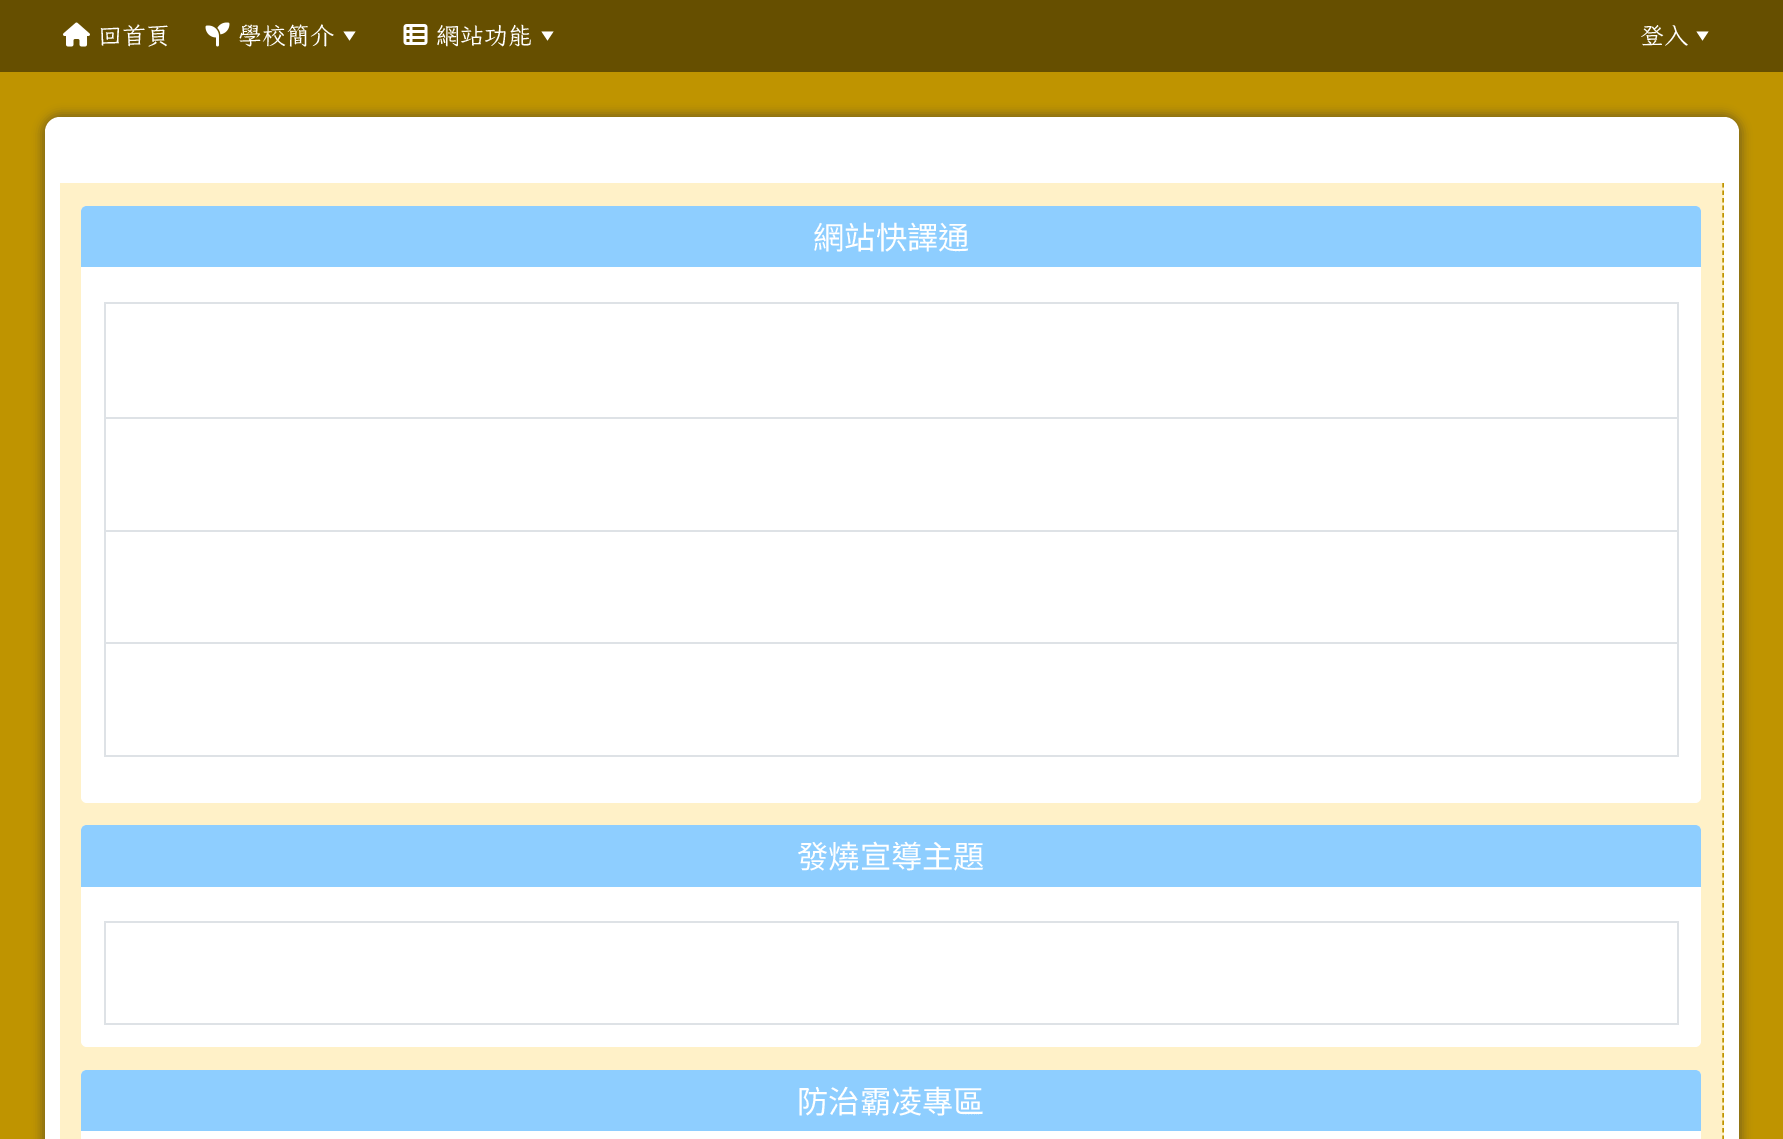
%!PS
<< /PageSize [1783 1139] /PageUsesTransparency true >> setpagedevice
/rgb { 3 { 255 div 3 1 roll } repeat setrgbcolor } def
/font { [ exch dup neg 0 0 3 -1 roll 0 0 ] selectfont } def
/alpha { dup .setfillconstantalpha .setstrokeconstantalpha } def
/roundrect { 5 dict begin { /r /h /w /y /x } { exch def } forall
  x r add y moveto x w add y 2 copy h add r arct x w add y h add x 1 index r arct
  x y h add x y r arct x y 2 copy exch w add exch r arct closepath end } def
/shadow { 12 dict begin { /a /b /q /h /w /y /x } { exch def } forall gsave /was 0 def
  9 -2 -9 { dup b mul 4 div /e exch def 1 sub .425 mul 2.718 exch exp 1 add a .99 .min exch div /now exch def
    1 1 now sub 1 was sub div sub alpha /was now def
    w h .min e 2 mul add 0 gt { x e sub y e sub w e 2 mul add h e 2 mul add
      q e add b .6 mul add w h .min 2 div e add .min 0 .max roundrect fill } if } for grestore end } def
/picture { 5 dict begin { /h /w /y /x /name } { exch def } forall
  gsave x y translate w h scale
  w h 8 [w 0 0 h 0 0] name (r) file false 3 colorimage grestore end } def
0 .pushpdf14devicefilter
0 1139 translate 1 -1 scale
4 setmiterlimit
191 148 0 rgb
0 0 1783 1139 rectfill
102 79 0 rgb
0 0 1783 72 rectfill
(img/1.rgb) 63 22 27 25 picture
(img/2.rgb) 205 22 25 25 picture
255 255 255 rgb
343.5 31.5 moveto 355.5 31.5 lineto 349.5 40.5 lineto closepath fill
(img/3.rgb) 403 24 25 21 picture
541.5 31.5 moveto 553.5 31.5 lineto 547.5 40.5 lineto closepath fill
1696.5 31.5 moveto 1708.5 31.5 lineto 1702.5 40.5 lineto closepath fill
50 50 50 rgb
41 113 1702 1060 20 4.5 0.4 shadow
255 255 255 rgb
45 117 1694 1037 15 roundrect fill
255 241 200 rgb
60 183 1664 956 rectfill
191 148 0 rgb
1.5 setlinewidth
[4.5 3] 0 setdash
1723 183 moveto 1723 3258 lineto stroke
255 255 255 rgb
81 206 1620 597 6 roundrect fill
142 206 255 rgb
87 206 moveto 1695 206 lineto 1698.5 206 1701 208.5 1701 212 curveto 1701 267 lineto 81 267 lineto 81 212 lineto 81 208.5 83.5 206 87 206 curveto closepath fill
[
  [104 302 1575 2 222 226 230]
  [1677 302 2 454 222 226 230]
  [104 755 1575 2 222 226 230]
  [104 302 2 454 222 226 230]
  [104 417 1575 2 222 226 230]
  [104 530 1575 2 222 226 230]
  [104 642 1575 2 222 226 230]
] { aload pop rgb rectfill } forall
255 255 255 rgb
81 825 1620 222 6 roundrect fill
142 206 255 rgb
87 825 moveto 1695 825 lineto 1698.5 825 1701 827.5 1701 831 curveto 1701 887 lineto 81 887 lineto 81 831 lineto 81 827.5 83.5 825 87 825 curveto closepath fill
[
  [104 921 1575 2 222 226 230]
  [1677 921 2 104 222 226 230]
  [104 1023 1575 2 222 226 230]
  [104 921 2 104 222 226 230]
] { aload pop rgb rectfill } forall
255 255 255 rgb
81 1070 1620 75 6 roundrect fill
142 206 255 rgb
87 1070 moveto 1695 1070 lineto 1698.5 1070 1701 1072.5 1701 1076 curveto 1701 1131 lineto 81 1131 lineto 81 1076 lineto 81 1072.5 83.5 1070 87 1070 curveto closepath fill
/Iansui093-Regular 24 font
255 255 255 rgb
[
  [(回首頁) 98 44]
  [(學校簡介) 238 44]
  [(網站功能) 436 44]
  [(登入) 1640 44]
] { aload pop moveto show } forall
/NotoSansTC-Thin 31.25 font
[
  [(網站快譯通) 813 249]
  [(發燒宣導主題) 797 868]
  [(防治霸凌專區) 797 1113]
] { aload pop moveto show } forall
.poppdf14devicefilter showpage
